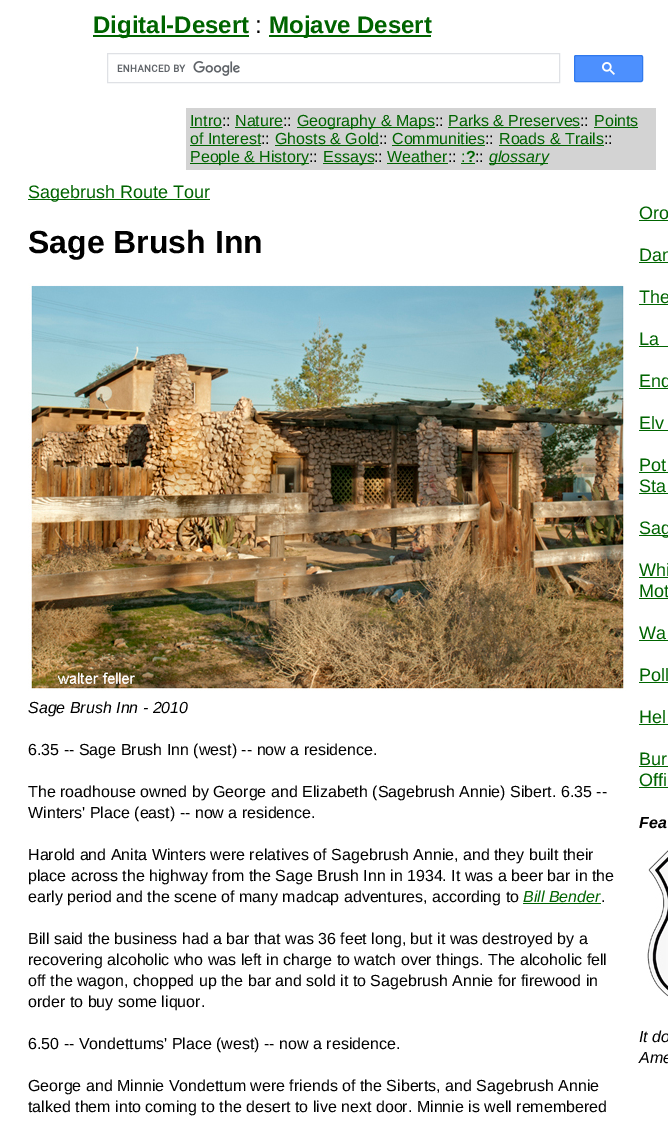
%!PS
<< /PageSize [668 1121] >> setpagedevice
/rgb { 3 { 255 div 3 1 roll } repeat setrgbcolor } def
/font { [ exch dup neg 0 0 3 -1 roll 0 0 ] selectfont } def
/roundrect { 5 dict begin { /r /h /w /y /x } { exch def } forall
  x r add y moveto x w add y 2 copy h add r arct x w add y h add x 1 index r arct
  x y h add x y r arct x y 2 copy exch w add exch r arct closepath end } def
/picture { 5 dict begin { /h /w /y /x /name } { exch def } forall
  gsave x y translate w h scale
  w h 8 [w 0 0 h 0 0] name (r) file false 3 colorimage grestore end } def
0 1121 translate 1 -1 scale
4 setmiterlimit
255 255 255 rgb
0 0 668 1121 rectfill
0 100 0 rgb
93 35 156 2 rectfill
269 35 162 2 rectfill
223 225 229 rgb
107.5 53.5 452 29 rectstroke
(img/1.rgb) 117 61 123 15 picture
77 144 254 rgb
574.5 55.5 68 26 1.5 roundrect gsave fill grestore
48 121 237 rgb
stroke
(img/2.rgb) 602 62 13 13 picture
[
  [186 108 470 62 211 211 211]
  [190 127 32 1 0 100 0]
  [235 127 48 1 0 100 0]
  [297 127 138 1 0 100 0]
  [448 127 132 1 0 100 0]
  [594 127 44 1 0 100 0]
  [190 145 71 1 0 100 0]
  [275 145 104 1 0 100 0]
  [392 145 93 1 0 100 0]
  [499 145 105 1 0 100 0]
  [190 163 119 1 0 100 0]
  [323 163 51 1 0 100 0]
  [387 163 61 1 0 100 0]
  [461 163 14 1 0 100 0]
  [489 163 59 1 0 100 0]
  [28 199 182 1 0 100 0]
] { aload pop rgb rectfill } forall
(img/3.rgb) 28 283 599 408 picture
[
  [523 903 78 1 0 100 0]
  [639 220 29 1 0 100 0]
  [639 262 29 1 0 100 0]
  [639 304 29 1 0 100 0]
  [639 346 29 1 0 100 0]
  [639 388 29 1 0 100 0]
  [639 430 29 1 0 100 0]
  [639 472 29 1 0 100 0]
  [639 493 29 1 0 100 0]
  [639 535 29 1 0 100 0]
  [639 577 29 1 0 100 0]
  [639 598 29 1 0 100 0]
  [639 640 29 1 0 100 0]
  [639 682 29 1 0 100 0]
  [639 724 29 1 0 100 0]
  [639 766 29 1 0 100 0]
  [639 787 29 1 0 100 0]
] { aload pop rgb rectfill } forall
(img/4.rgb) 647 850 21 147 picture
/LiberationSans-Bold 24 font
93 33 moveto (Digital-Desert) show
/LiberationSans-Regular 24 font
0 0 0 rgb
255 33 moveto (:) show
/LiberationSans-Bold 24 font
0 100 0 rgb
269 33 moveto (Mojave Desert) show
/LiberationSans-Regular 16 font
190 126 moveto (Intro) show
0 0 0 rgb
222 126 moveto (::) show
0 100 0 rgb
235 126 moveto (Nature) show
0 0 0 rgb
283 126 moveto (::) show
0 100 0 rgb
297 126 moveto (Geography & Maps) show
0 0 0 rgb
435 126 moveto (::) show
0 100 0 rgb
448 126 moveto (Parks & Preserves) show
0 0 0 rgb
580 126 moveto (::) show
0 100 0 rgb
594 126 moveto (Points) show
190 144 moveto (of Interest) show
0 0 0 rgb
261 144 moveto (::) show
0 100 0 rgb
275 144 moveto (Ghosts & Gold) show
0 0 0 rgb
379 144 moveto (::) show
0 100 0 rgb
392 144 moveto (Communities) show
0 0 0 rgb
485 144 moveto (::) show
0 100 0 rgb
499 144 moveto (Roads & Trails) show
0 0 0 rgb
604 144 moveto (::) show
0 100 0 rgb
190 162 moveto (People & History) show
0 0 0 rgb
309 162 moveto (::) show
0 100 0 rgb
323 162 moveto (Essays) show
0 0 0 rgb
374 162 moveto (::) show
0 100 0 rgb
387 162 moveto (Weather) show
0 0 0 rgb
448 162 moveto (::) show
0 100 0 rgb
461 162 moveto (:) show
/LiberationSans-Bold 16 font
466 162 moveto (?) show
/LiberationSans-Regular 16 font
0 0 0 rgb
475 162 moveto (::) show
/LiberationSans-Italic 16 font
0 100 0 rgb
489 162 moveto (glossary) show
/LiberationSans-Regular 18 font
28 198 moveto (Sagebrush Route Tour) show
/LiberationSans-Bold 32 font
0 0 0 rgb
28 253 moveto (Sage Brush Inn) show
/LiberationSans-Italic 16 font
28 713 moveto (Sage Brush Inn - 2010) show
/LiberationSans-Regular 16 font
[
  [(6.35 -- Sage Brush Inn \(west\) -- now a residence.) 28 755]
  [(The roadhouse owned by George and Elizabeth \(Sagebrush Annie\) Sibert. 6.35 --) 28 797]
  [(Winters' Place \(east\) -- now a residence.) 28 818]
  [(Harold and Anita Winters were relatives of Sagebrush Annie, and they built their) 28 860]
  [(place across the highway from the Sage Brush Inn in 1934. It was a beer bar in the) 28 881]
  [(early period and the scene of many madcap adventures, according to) 28 902]
] { aload pop moveto show } forall
/LiberationSans-Italic 16 font
0 100 0 rgb
523 902 moveto (Bill Bender) show
/LiberationSans-Regular 16 font
0 0 0 rgb
[
  [(.) 601 902]
  [(Bill said the business had a bar that was 36 feet long, but it was destroyed by a) 28 944]
  [(recovering alcoholic who was left in charge to watch over things. The alcoholic fell) 28 965]
  [(off the wagon, chopped up the bar and sold it to Sagebrush Annie for firewood in) 28 986]
  [(order to buy some liquor.) 28 1007]
  [(6.50 -- Vondettums' Place \(west\) -- now a residence.) 28 1049]
  [(George and Minnie Vondettum were friends of the Siberts, and Sagebrush Annie) 28 1091]
  [(talked them into coming to the desert to live next door. Minnie is well remembered) 28 1112]
] { aload pop moveto show } forall
/LiberationSans-Regular 18 font
0 100 0 rgb
[
  [(Oro) 639 219]
  [(Dan) 639 261]
  [(The) 639 303]
  [(La) 639 345]
  [(End) 639 387]
  [(Elv) 639 429]
  [(Pot) 639 471]
  [(Sta) 639 492]
  [(Sag) 639 534]
  [(Whi) 639 576]
  [(Mot) 639 597]
  [(Wa) 639 639]
  [(Poll) 639 681]
  [(Hel) 639 723]
  [(Bur) 639 765]
  [(Offi) 639 786]
] { aload pop moveto show } forall
/LiberationSans-BoldItalic 16 font
0 0 0 rgb
639 828 moveto (Fea) show
/LiberationSans-Italic 16 font
639 1042 moveto (It do) show
639 1063 moveto (Ame) show
showpage
